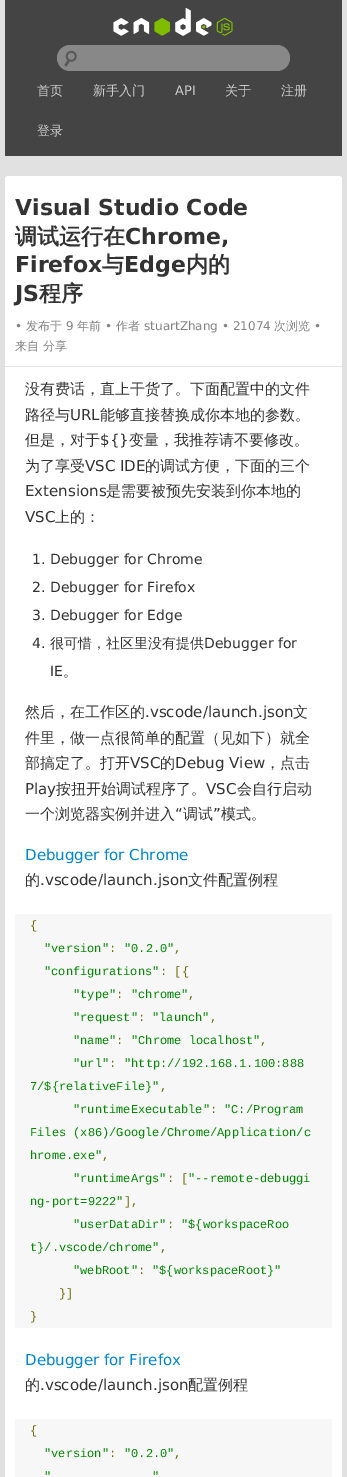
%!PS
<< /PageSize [347 1477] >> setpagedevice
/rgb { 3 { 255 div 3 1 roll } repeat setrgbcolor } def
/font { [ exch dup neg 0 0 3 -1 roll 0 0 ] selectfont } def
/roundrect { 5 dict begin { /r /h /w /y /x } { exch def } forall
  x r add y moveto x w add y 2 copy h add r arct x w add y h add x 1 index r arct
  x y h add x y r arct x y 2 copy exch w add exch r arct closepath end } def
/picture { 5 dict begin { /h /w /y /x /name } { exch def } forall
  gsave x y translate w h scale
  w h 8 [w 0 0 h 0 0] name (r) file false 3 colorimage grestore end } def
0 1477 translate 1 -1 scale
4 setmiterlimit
225 225 225 rgb
0 0 347 1477 rectfill
68 68 68 rgb
5 0 337 156 rectfill
(img/1.rgb) 113 8 120 28 picture
136 136 136 rgb
57 45 233 26 13 roundrect fill
(img/2.rgb) 64 50 13 17 picture
255 255 255 rgb
8 176 moveto 339 176 lineto 340.5 176 342 177.5 342 179 curveto 342 366 lineto 5 366 lineto 5 179 lineto 5 177.5 6.5 176 8 176 curveto closepath fill
[
  [5 367 337 1110 255 255 255]
  [5 366 337 1 229 229 229]
  [15 914 317 414 247 247 247]
  [15 1419 317 58 247 247 247]
] { aload pop rgb rectfill } forall
/WenQuanYiZenHei-Medium 13 font
204 204 204 rgb
37 95 moveto (首页) show
93 95 moveto (新手入门) show
/DejaVuSans-Regular 13 font
175 95 moveto (API) show
/WenQuanYiZenHei-Medium 13 font
[
  [(关于) 225 95]
  [(注册) 281 95]
  [(登录) 37 135]
] { aload pop moveto show } forall
/DejaVuSans-Bold 22 font
51 51 51 rgb
15 215 moveto (Visual Studio Code) show
/WenQuanYiZenHei-Bold 22 font
15 244 moveto (调试运行在) show
/DejaVuSans-Bold 22 font
125 244 moveto (Chrome,) show
15 272 moveto (Firefox) show
/WenQuanYiZenHei-Bold 22 font
102 272 moveto (与) show
/DejaVuSans-Bold 22 font
124 272 moveto (Edge) show
/WenQuanYiZenHei-Bold 22 font
186 272 moveto (内的) show
/DejaVuSans-Bold 22 font
15 301 moveto (JS) show
/WenQuanYiZenHei-Bold 22 font
39 301 moveto (程序) show
/DejaVuSans-Regular 12 font
131 131 131 rgb
15 330 moveto (•) show
/WenQuanYiZenHei-Medium 12 font
26 330 moveto (发布于) show
/DejaVuSans-Regular 12 font
66 330 moveto (9) show
/WenQuanYiZenHei-Medium 12 font
77 330 moveto (年前) show
/DejaVuSans-Regular 12 font
105 330 moveto (•) show
/WenQuanYiZenHei-Medium 12 font
116 330 moveto (作者) show
/DejaVuSans-Regular 12 font
144 330 moveto (stuartZhang • 21074) show
/WenQuanYiZenHei-Medium 12 font
274 330 moveto (次浏览) show
/DejaVuSans-Regular 12 font
314 330 moveto (•) show
/WenQuanYiZenHei-Medium 12 font
15 350 moveto (来自 分享) show
/WenQuanYiZenHei-Medium 15 font
51 51 51 rgb
25 394 moveto (没有费话，直上干货了。下面配置中的文件) show
25 420 moveto (路径与) show
/DejaVuSans-Regular 15 font
70 420 moveto (URL) show
/WenQuanYiZenHei-Medium 15 font
100 420 moveto (能够直接替换成你本地的参数。) show
25 445 moveto (但是，对于) show
/DejaVuSans-Regular 15 font
100 445 moveto (${}) show
/WenQuanYiZenHei-Medium 15 font
129 445 moveto (变量，我推荐请不要修改。) show
25 471 moveto (为了享受) show
/DejaVuSans-Regular 15 font
85 471 moveto (VSC IDE) show
/WenQuanYiZenHei-Medium 15 font
145 471 moveto (的调试方便，下面的三个) show
/DejaVuSans-Regular 15 font
25 496 moveto (Extensions) show
/WenQuanYiZenHei-Medium 15 font
106 496 moveto (是需要被预先安装到你本地的) show
/DejaVuSans-Regular 15 font
25 522 moveto (VSC) show
/WenQuanYiZenHei-Medium 15 font
55 522 moveto (上的：) show
/DejaVuSans-Regular 14 font
[
  [(1. Debugger for Chrome) 32 564]
  [(2. Debugger for Firefox) 32 592]
  [(3. Debugger for Edge) 32 620]
  [(4.) 32 648]
] { aload pop moveto show } forall
/WenQuanYiZenHei-Medium 14 font
50 648 moveto (很可惜，社区里没有提供) show
/DejaVuSans-Regular 14 font
204 648 moveto (Debugger for) show
50 676 moveto (IE) show
/WenQuanYiZenHei-Medium 14 font
63 676 moveto (。) show
/WenQuanYiZenHei-Medium 15 font
25 717 moveto (然后，在工作区的) show
/DejaVuSans-Regular 15 font
145 717 moveto (.vscode/launch.json) show
/WenQuanYiZenHei-Medium 15 font
[
  [(文) 293 717]
  [(件里，做一点很简单的配置（见如下）就全) 25 743]
  [(部搞定了。打开) 25 768]
] { aload pop moveto show } forall
/DejaVuSans-Regular 15 font
130 768 moveto (VSC) show
/WenQuanYiZenHei-Medium 15 font
160 768 moveto (的) show
/DejaVuSans-Regular 15 font
175 768 moveto (Debug View) show
/WenQuanYiZenHei-Medium 15 font
265 768 moveto (，点击) show
/DejaVuSans-Regular 15 font
25 794 moveto (Play) show
/WenQuanYiZenHei-Medium 15 font
56 794 moveto (按扭开始调试程序了。) show
/DejaVuSans-Regular 15 font
206 794 moveto (VSC) show
/WenQuanYiZenHei-Medium 15 font
237 794 moveto (会自行启动) show
25 819 moveto (一个浏览器实例并进入) show
/DejaVuSans-Regular 15 font
175 819 moveto (“) show
/WenQuanYiZenHei-Medium 15 font
183 819 moveto (调试) show
/DejaVuSans-Regular 15 font
213 819 moveto (”) show
/WenQuanYiZenHei-Medium 15 font
221 819 moveto (模式。) show
/DejaVuSans-Regular 15 font
0 136 204 rgb
25 860 moveto (Debugger for Chrome) show
/WenQuanYiZenHei-Medium 15 font
51 51 51 rgb
25 885 moveto (的) show
/DejaVuSans-Regular 15 font
40 885 moveto (.vscode/launch.json) show
/WenQuanYiZenHei-Medium 15 font
188 885 moveto (文件配置例程) show
/LiberationMono-Regular 12 font
102 102 0 rgb
30 929 moveto ({) show
0 136 0 rgb
44 952 moveto ("version") show
102 102 0 rgb
109 952 moveto (:) show
0 136 0 rgb
124 952 moveto ("0.2.0") show
102 102 0 rgb
174 952 moveto (,) show
0 136 0 rgb
44 975 moveto ("configurations") show
102 102 0 rgb
160 975 moveto (: [{) show
0 136 0 rgb
73 998 moveto ("type") show
102 102 0 rgb
116 998 moveto (:) show
0 136 0 rgb
131 998 moveto ("chrome") show
102 102 0 rgb
188 998 moveto (,) show
0 136 0 rgb
73 1021 moveto ("request") show
102 102 0 rgb
138 1021 moveto (:) show
0 136 0 rgb
152 1021 moveto ("launch") show
102 102 0 rgb
210 1021 moveto (,) show
0 136 0 rgb
73 1044 moveto ("name") show
102 102 0 rgb
116 1044 moveto (:) show
0 136 0 rgb
131 1044 moveto ("Chrome localhost") show
102 102 0 rgb
260 1044 moveto (,) show
0 136 0 rgb
73 1067 moveto ("url") show
102 102 0 rgb
109 1067 moveto (:) show
0 136 0 rgb
124 1067 moveto ("http://192.168.1.100:888) show
30 1090 moveto (7/${relativeFile}") show
102 102 0 rgb
160 1090 moveto (,) show
0 136 0 rgb
73 1113 moveto ("runtimeExecutable") show
102 102 0 rgb
210 1113 moveto (:) show
0 136 0 rgb
[
  [("C:/Program) 224 1113]
  [(Files \(x86\)/Google/Chrome/Application/c) 30 1136]
  [(hrome.exe") 30 1159]
] { aload pop moveto show } forall
102 102 0 rgb
102 1159 moveto (,) show
0 136 0 rgb
73 1182 moveto ("runtimeArgs") show
102 102 0 rgb
167 1182 moveto (: [) show
0 136 0 rgb
188 1182 moveto ("--remote-debuggi) show
30 1205 moveto (ng-port=9222") show
102 102 0 rgb
124 1205 moveto (],) show
0 136 0 rgb
73 1228 moveto ("userDataDir") show
102 102 0 rgb
167 1228 moveto (:) show
0 136 0 rgb
181 1228 moveto ("${workspaceRoo) show
30 1251 moveto (t}/.vscode/chrome") show
102 102 0 rgb
160 1251 moveto (,) show
0 136 0 rgb
73 1274 moveto ("webRoot") show
102 102 0 rgb
138 1274 moveto (:) show
0 136 0 rgb
152 1274 moveto ("${workspaceRoot}") show
102 102 0 rgb
59 1297 moveto (}]) show
30 1320 moveto (}) show
/DejaVuSans-Regular 15 font
0 136 204 rgb
25 1365 moveto (Debugger for Firefox) show
/WenQuanYiZenHei-Medium 15 font
51 51 51 rgb
25 1390 moveto (的) show
/DejaVuSans-Regular 15 font
40 1390 moveto (.vscode/launch.json) show
/WenQuanYiZenHei-Medium 15 font
188 1390 moveto (配置例程) show
/LiberationMono-Regular 12 font
102 102 0 rgb
30 1434 moveto ({) show
0 136 0 rgb
44 1457 moveto ("version") show
102 102 0 rgb
109 1457 moveto (:) show
0 136 0 rgb
124 1457 moveto ("0.2.0") show
102 102 0 rgb
174 1457 moveto (,) show
0 136 0 rgb
44 1480 moveto (") show
152 1480 moveto (") show
showpage
